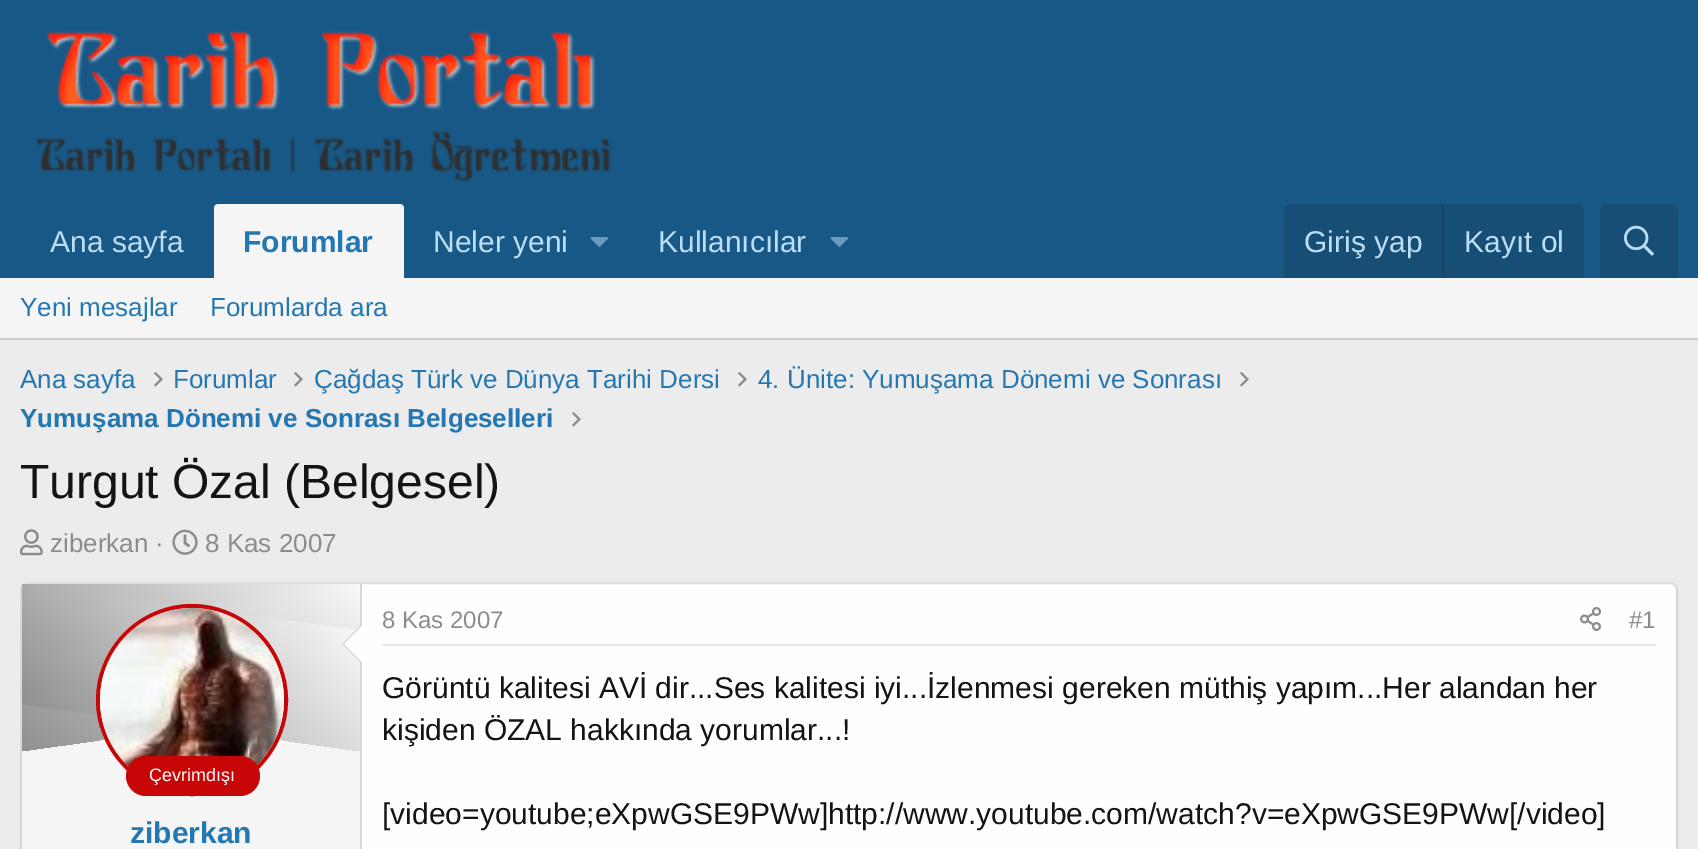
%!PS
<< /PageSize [1698 849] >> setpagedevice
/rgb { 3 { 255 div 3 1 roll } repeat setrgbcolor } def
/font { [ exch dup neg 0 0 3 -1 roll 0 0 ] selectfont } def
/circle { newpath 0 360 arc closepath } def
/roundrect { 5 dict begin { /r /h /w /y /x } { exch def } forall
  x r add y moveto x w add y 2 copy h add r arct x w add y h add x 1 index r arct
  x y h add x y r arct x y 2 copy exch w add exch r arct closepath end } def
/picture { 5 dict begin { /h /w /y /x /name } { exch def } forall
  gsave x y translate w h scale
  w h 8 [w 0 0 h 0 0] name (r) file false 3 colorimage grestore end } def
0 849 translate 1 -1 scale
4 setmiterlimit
236 236 236 rgb
0 0 1698 849 rectfill
24 88 134 rgb
0 0 1698 278 rectfill
(img/1.rgb) 35 31 576 150 picture
245 245 245 rgb
218 204 moveto 400 204 lineto 402 204 404 206 404 208 curveto 404 278 lineto 214 278 lineto 214 208 lineto 214 206 216 204 218 204 curveto closepath fill
(img/2.rgb) 590 237 18 10 picture
(img/2.rgb) 830 237 18 10 picture
23 78 117 rgb
1292 204 moveto 1576 204 lineto 1580.5 204 1584 207.5 1584 212 curveto 1584 278 lineto 1284 278 lineto 1284 212 lineto 1284 207.5 1287.5 204 1292 204 curveto closepath fill
23 69 102 rgb
1442 204 2 74 rectfill
23 78 117 rgb
1608 204 moveto 1670 204 lineto 1674.5 204 1678 207.5 1678 212 curveto 1678 278 lineto 1600 278 lineto 1600 212 lineto 1600 207.5 1603.5 204 1608 204 curveto closepath fill
(img/3.rgb) 1624 225 30 31 picture
245 245 245 rgb
0 278 1698 60 rectfill
203 203 203 rgb
0 338 1698 2 rectfill
(img/4.rgb) 154 372 9 15 picture
(img/4.rgb) 294 372 9 15 picture
(img/4.rgb) 738 372 9 15 picture
(img/4.rgb) 1240 372 9 15 picture
(img/4.rgb) 572 412 9 15 picture
(img/5.rgb) 20 529 23 27 picture
(img/6.rgb) 172 529 26 26 picture
254 254 254 rgb
20 582 1658 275 8 roundrect fill
223 223 223 rgb
2 setlinewidth
23 585 moveto 24.5 583.5 26 583 28 583 curveto 1670 583 lineto 1672 583 1673.5 583.5 1675 585 curveto stroke
216 216 216 rgb
1675 585 moveto 1676.5 586.5 1677 588 1677 590 curveto 1677 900 lineto 1677 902 1676.5 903.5 1675 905 curveto stroke
23 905 moveto 21.5 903.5 21 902 21 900 curveto 21 590 lineto 21 588 21.5 586.5 23 585 curveto stroke
245 245 245 rgb
22 739 338 110 rectfill
216 216 216 rgb
360 584 2 265 rectfill
gsave 22 584 moveto 360 584 lineto 360 606 lineto 22 606 lineto closepath clip newpath
<< /ShadingType 2 /ColorSpace /DeviceRGB /Coords [77 759 306 530] /Extend [true true] /Function << /FunctionType 2 /Domain [0 1] /C0 [0.569 0.569 0.569] /C1 [0.973 0.973 0.973] /N 1 >> >> shfill grestore
gsave 22 631 moveto 360 584 lineto 360 704 lineto 22 751 lineto closepath clip newpath
<< /ShadingType 2 /ColorSpace /DeviceRGB /Coords [77 798 306 537] /Extend [true true] /Function << /FunctionType 2 /Domain [0 1] /C0 [0.569 0.569 0.569] /C1 [0.973 0.973 0.973] /N 1 >> >> shfill grestore
gsave 22 584 moveto 360 631 lineto 360 751 lineto 22 704 lineto closepath clip newpath
<< /ShadingType 2 /ColorSpace /DeviceRGB /Coords [77 766 306 569] /Extend [true true] /Function << /FunctionType 2 /Domain [0 1] /C0 [0.569 0.569 0.569] /C1 [0.973 0.973 0.973] /N 1 >> >> shfill grestore
362 624 moveto 362 664 lineto 342 644 lineto closepath fill
254 254 254 rgb
362 626 moveto 362 662 lineto 344 644 lineto closepath fill
192 700 94 circle gsave fill grestore
199 7 7 rgb
4 setlinewidth
stroke
(img/7.rgb) 100 608 184 159 picture
126 756 134 40 20 roundrect fill
231 231 231 rgb
382 644 1274 2 rectfill
(img/8.rgb) 1580 607 21 24 picture
/LiberationSans-Regular 30 font
188 222 245 rgb
50 252 moveto (Ana sayfa) show
/LiberationSans-Bold 30 font
37 119 177 rgb
243 252 moveto (Forumlar) show
/LiberationSans-Regular 30 font
188 222 245 rgb
[
  [(Neler yeni) 433 252]
  [(Kullanıcılar) 658 252]
  [(Giriş yap) 1304 252]
  [(Kayıt ol) 1464 252]
] { aload pop moveto show } forall
/LiberationSans-Regular 26 font
37 119 177 rgb
[
  [(Yeni mesajlar) 20 316]
  [(Forumlarda ara) 210 316]
  [(Ana sayfa) 20 388]
  [(Forumlar) 173 388]
  [(Çağdaş Türk ve Dünya Tarihi Dersi) 314 388]
  [(4. Ünite: Yumuşama Dönemi ve Sonrası) 758 388]
] { aload pop moveto show } forall
/LiberationSans-Bold 26 font
20 427 moveto (Yumuşama Dönemi ve Sonrası Belgeselleri) show
/LiberationSans-Regular 48 font
20 20 20 rgb
20 498 moveto (Turgut Özal \(Belgesel\)) show
/LiberationSans-Regular 26 font
140 140 140 rgb
50 552 moveto (ziberkan ·) show
205 552 moveto (8 Kas 2007) show
/LiberationSans-Regular 18 font
255 255 255 rgb
149 781 moveto (Çevrimdışı) show
/LiberationSans-Bold 30 font
37 119 177 rgb
130 843 moveto (ziberkan) show
/LiberationSans-Regular 24 font
140 140 140 rgb
382 628 moveto (8 Kas 2007) show
1629 628 moveto (#1) show
/LiberationSans-Regular 30 font
20 20 20 rgb
[
  [(Görüntü kalitesi AVİ dir...Ses kalitesi iyi...İzlenmesi gereken müthiş yapım...Her alandan her) 382 698]
  [(kişiden ÖZAL hakkında yorumlar...!) 382 740]
  [([video=youtube;eXpwGSE9PWw]http://www.youtube.com/watch?v=eXpwGSE9PWw[/video]) 382 824]
] { aload pop moveto show } forall
showpage
